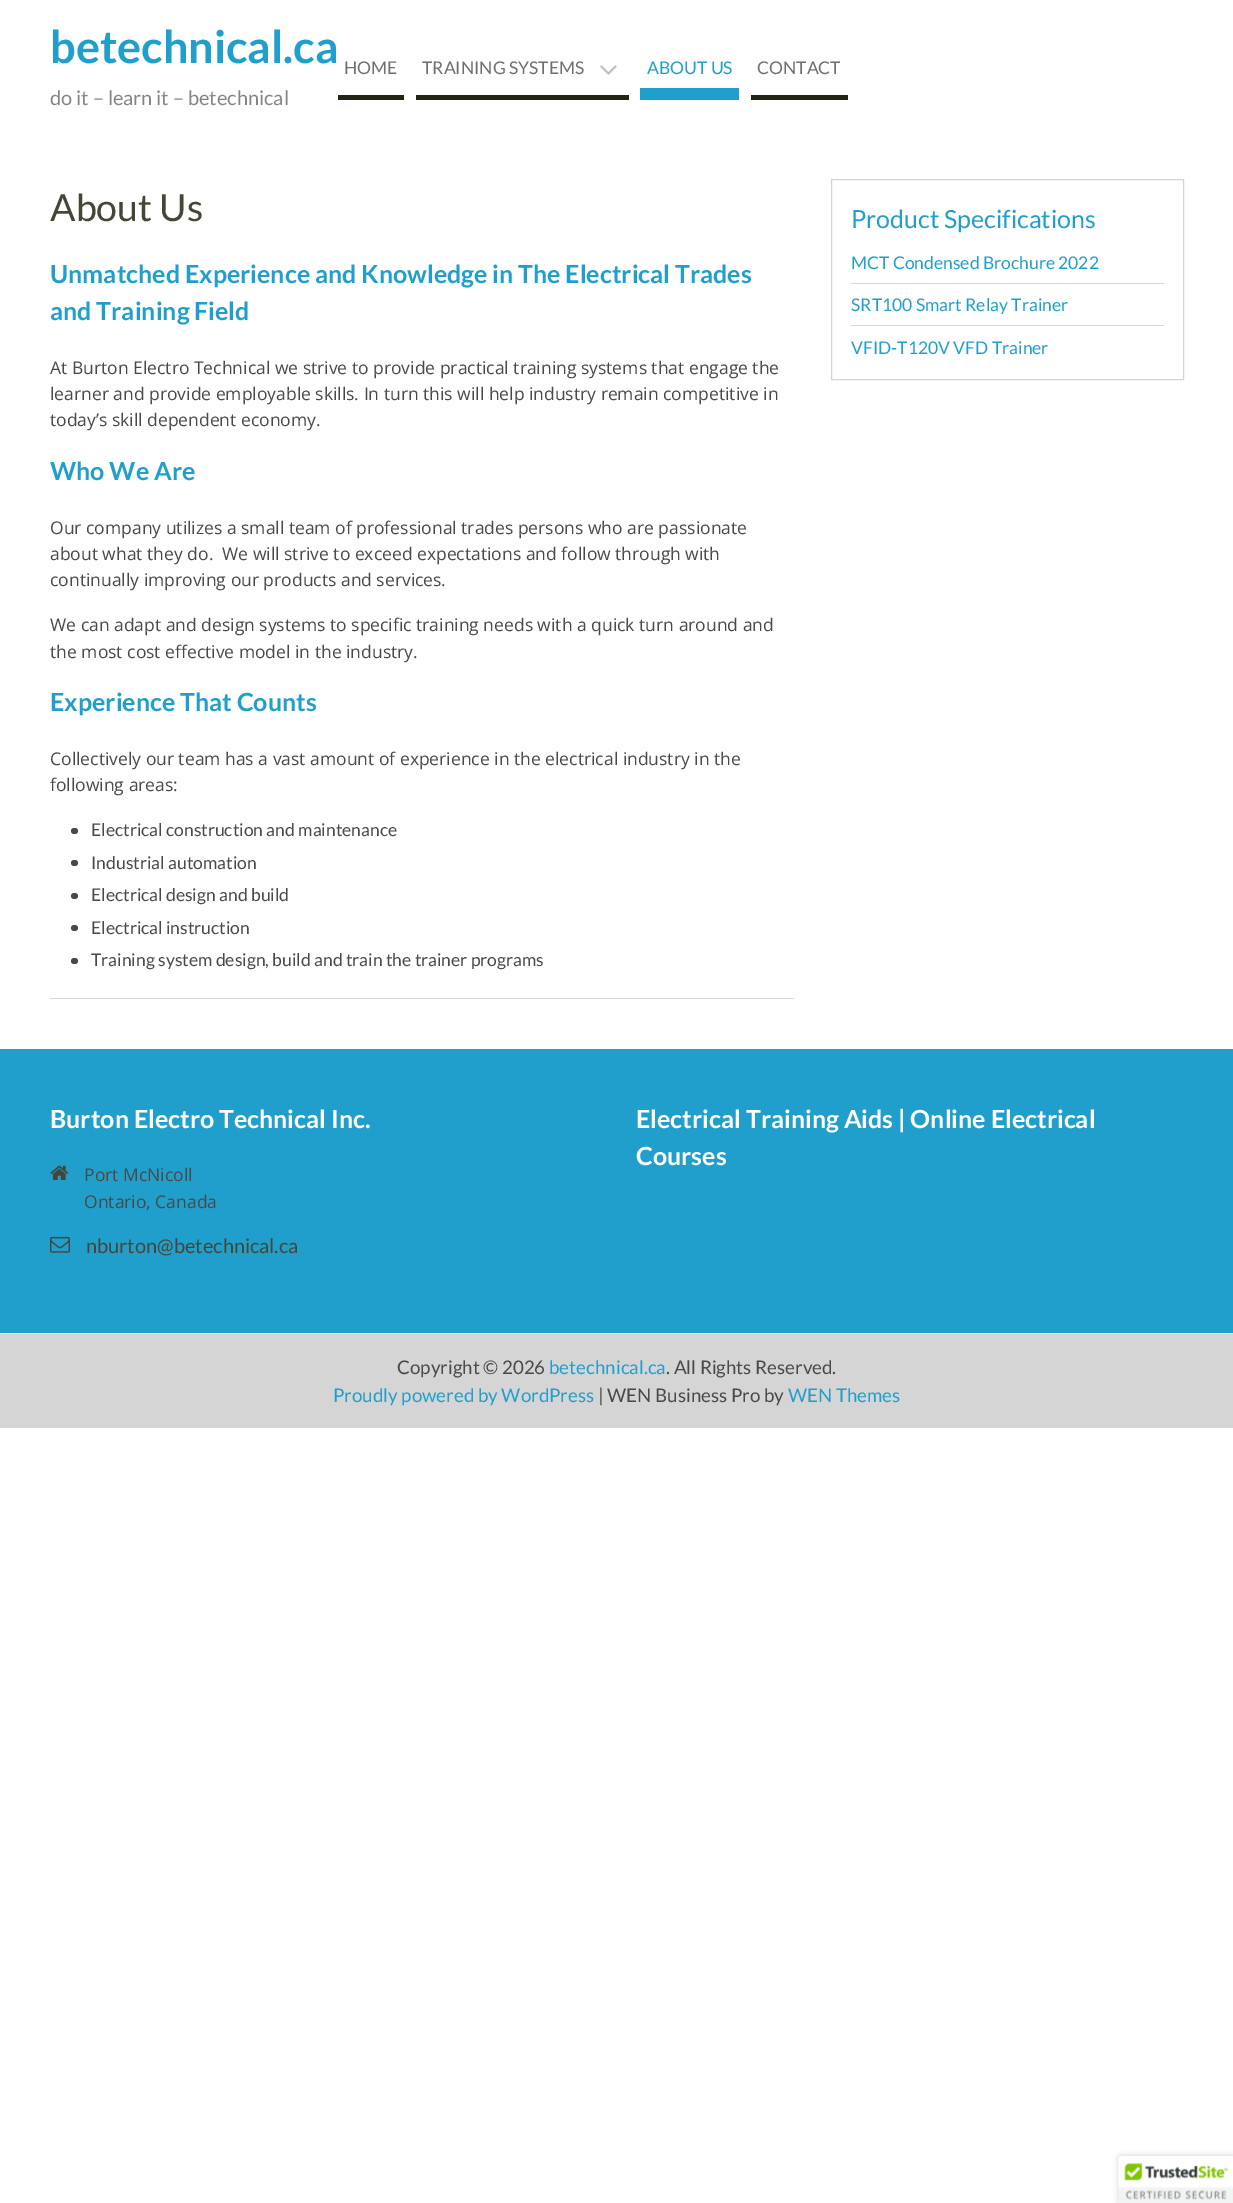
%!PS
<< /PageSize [1233 2203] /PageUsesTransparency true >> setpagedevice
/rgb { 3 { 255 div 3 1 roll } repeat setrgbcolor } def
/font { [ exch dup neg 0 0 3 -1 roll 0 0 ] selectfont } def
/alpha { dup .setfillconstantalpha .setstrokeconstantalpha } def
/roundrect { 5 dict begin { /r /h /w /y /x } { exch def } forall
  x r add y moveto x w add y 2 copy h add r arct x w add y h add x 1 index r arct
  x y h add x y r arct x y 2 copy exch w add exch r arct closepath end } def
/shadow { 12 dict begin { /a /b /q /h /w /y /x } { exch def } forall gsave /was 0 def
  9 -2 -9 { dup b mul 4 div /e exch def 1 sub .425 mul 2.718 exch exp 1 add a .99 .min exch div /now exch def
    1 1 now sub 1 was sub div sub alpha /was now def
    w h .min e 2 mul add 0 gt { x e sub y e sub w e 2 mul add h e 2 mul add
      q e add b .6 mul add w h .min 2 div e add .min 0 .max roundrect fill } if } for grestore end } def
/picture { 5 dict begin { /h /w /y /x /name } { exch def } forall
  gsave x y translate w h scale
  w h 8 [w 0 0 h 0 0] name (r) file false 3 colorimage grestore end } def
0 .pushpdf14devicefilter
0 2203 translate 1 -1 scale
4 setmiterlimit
255 255 255 rgb
0 0 1233 2203 rectfill
36 36 21 rgb
338 95 66 5 rectfill
(img/1.rgb) 600 65 17 10 picture
[
  [416 95 213 5 36 36 21]
  [640 88 99 12 32 159 204]
  [751 95 97 5 36 36 21]
  [50 998 744 1 214 213 213]
] { aload pop rgb rectfill } forall
73 73 73 rgb
71 828 7 6 3 roundrect fill
71 860 7 6 3 roundrect fill
71 893 7 6 3 roundrect fill
71 925 7 6 3 roundrect fill
71 958 7 6 3 roundrect fill
212 212 212 rgb
831.5 179.5 352 200 rectstroke
[
  [851 283 313 1 215 215 208]
  [851 325 313 1 215 215 208]
  [0 1049 1233 284 32 159 204]
] { aload pop rgb rectfill } forall
(img/2.rgb) 50 1165 19 15 picture
(img/3.rgb) 50 1236 20 17 picture
213 213 213 rgb
0 1334 1233 94 rectfill
0 0 0 rgb
1119 2156 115 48 2.5 3 0.2 shadow
255 255 255 rgb
1121.5 2156 moveto 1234 2156 lineto 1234 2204 lineto 1119 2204 lineto 1119 2158.5 lineto 1119 2157 1120 2156 1121.5 2156 curveto closepath fill
(img/4.rgb) 1118 2156 115 47 picture
/Lato-Bold 45 font
32 159 204 rgb
50 63 moveto (betechnical.ca) show
/Lato-Regular 20 font
133 133 133 rgb
50 105 moveto (do it – learn it – betechnical) show
/Lato-Regular 17.5 font
111 111 111 rgb
344 74 moveto (HOME) show
422 74 moveto (TRAINING SYSTEMS) show
32 159 204 rgb
647 74 moveto (ABOUT US) show
111 111 111 rgb
757 74 moveto (CONTACT) show
/Lato-Regular 37.5 font
70 70 55 rgb
50 221 moveto (About Us) show
/Lato-Bold 25 font
32 159 204 rgb
50 283 moveto (Unmatched Experience and Knowledge in The Electrical Trades) show
50 320 moveto (and Training Field) show
/OpenSans-Regular 17.5 font
73 73 73 rgb
[
  [(At Burton Electro Technical we strive to provide practical training systems that engage the) 50 374]
  [(learner and provide employable skills. In turn this will help industry remain competitive in) 50 400]
  [(today’s skill dependent economy.) 50 426]
] { aload pop moveto show } forall
/Lato-Bold 25 font
32 159 204 rgb
50 480 moveto (Who We Are) show
/OpenSans-Regular 17.5 font
73 73 73 rgb
[
  [(Our company utilizes a small team of professional trades persons who are passionate) 50 534]
  [(about what they do.  We will strive to exceed expectations and follow through with) 50 560]
  [(continually improving our products and services.) 50 586]
  [(We can adapt and design systems to specific training needs with a quick turn around and) 50 631]
  [(the most cost effective model in the industry.) 50 658]
] { aload pop moveto show } forall
/Lato-Bold 25 font
32 159 204 rgb
50 711 moveto (Experience That Counts) show
/OpenSans-Regular 17.5 font
73 73 73 rgb
50 765 moveto (Collectively our team has a vast amount of experience in the electrical industry in the) show
50 791 moveto (following areas:) show
/Lato-Regular 17.5 font
[
  [(Electrical construction and maintenance) 91 836]
  [(Industrial automation) 91 869]
  [(Electrical design and build) 91 901]
  [(Electrical instruction) 91 934]
  [(Training system design, build and train the trainer programs) 91 966]
] { aload pop moveto show } forall
/Lato-Regular 25 font
32 159 204 rgb
851 228 moveto (Product Specifications) show
/Lato-Regular 17.5 font
[
  [(MCT Condensed Brochure 2022) 851 269]
  [(SRT100 Smart Relay Trainer) 851 311]
  [(VFID-T120V VFD Trainer) 851 354]
] { aload pop moveto show } forall
/Lato-Bold 25 font
255 255 255 rgb
50 1128 moveto (Burton Electro Technical Inc.) show
/OpenSans-Regular 17.5 font
73 73 73 rgb
84 1181 moveto (Port McNicoll) show
84 1208 moveto (Ontario, Canada) show
/Lato-Regular 20 font
70 70 55 rgb
86 1253 moveto (nburton@betechnical.ca) show
/Lato-Bold 25 font
255 255 255 rgb
636 1128 moveto (Electrical Training Aids | Online Electrical) show
636 1165 moveto (Courses) show
/Lato-Regular 18.75 font
73 73 73 rgb
397 1374 moveto (Copyright © 2026) show
32 159 204 rgb
549 1374 moveto (betechnical.ca) show
73 73 73 rgb
666 1374 moveto (. All Rights Reserved.) show
32 159 204 rgb
333 1402 moveto (Proudly powered by WordPress) show
73 73 73 rgb
598 1402 moveto (| WEN Business Pro by) show
32 159 204 rgb
788 1402 moveto (WEN Themes) show
.poppdf14devicefilter showpage
